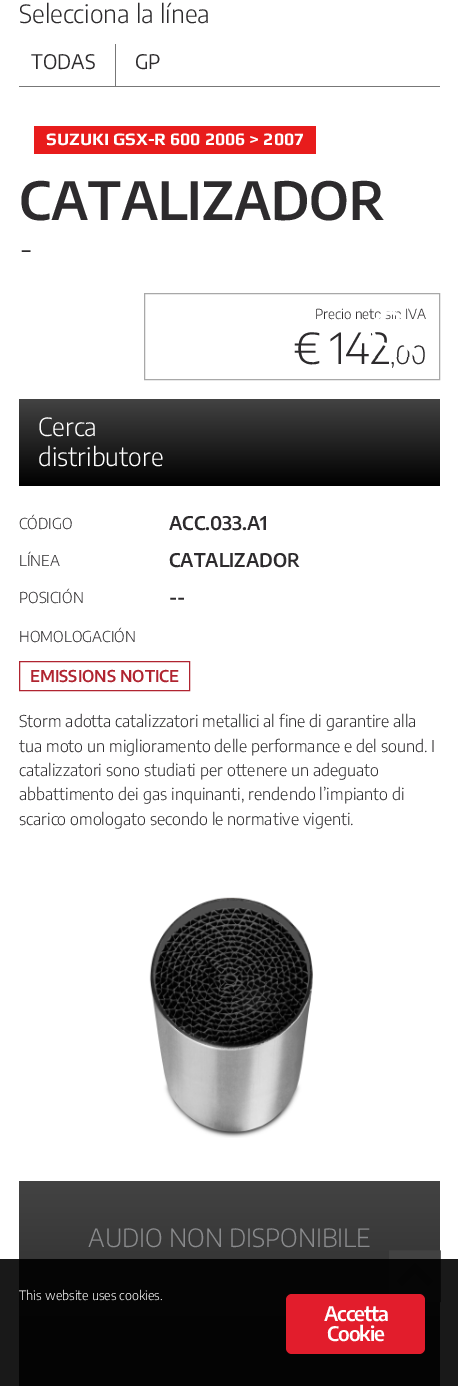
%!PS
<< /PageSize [458 1386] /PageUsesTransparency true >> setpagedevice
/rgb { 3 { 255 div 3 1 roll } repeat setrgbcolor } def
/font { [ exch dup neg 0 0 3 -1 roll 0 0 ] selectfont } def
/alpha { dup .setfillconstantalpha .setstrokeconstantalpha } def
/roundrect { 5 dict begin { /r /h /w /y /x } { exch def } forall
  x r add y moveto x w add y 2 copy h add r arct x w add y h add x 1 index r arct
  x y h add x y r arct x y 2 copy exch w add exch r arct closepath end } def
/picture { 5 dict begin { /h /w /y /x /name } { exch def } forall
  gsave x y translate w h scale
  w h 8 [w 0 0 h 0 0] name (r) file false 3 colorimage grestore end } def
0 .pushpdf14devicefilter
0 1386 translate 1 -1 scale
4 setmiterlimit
255 255 255 rgb
0 0 458 1386 rectfill
[
  [19 86 421 1 119 119 119]
  [115 44 1 42 119 119 119]
  [34 126 282 28 232 28 28]
] { aload pop rgb rectfill } forall
168 168 168 rgb
144.5 293.5 295 86 rectstroke
gsave 19 399 moveto 440 399 lineto 440 486 lineto 19 486 lineto closepath clip newpath
<< /ShadingType 2 /ColorSpace /DeviceRGB /Coords [229 399 229 486] /Extend [true true] /Function << /FunctionType 2 /Domain [0 1] /C0 [0.263 0.263 0.263] /C1 [0 0 0] /N 1 >> >> shfill grestore
176 36 48 rgb
19.5 661.5 170 29 rectstroke
(img/2.rgb) 149 897 164 241 picture
gsave 19 1181 moveto 440 1181 lineto 440 1386 lineto 19 1386 lineto closepath clip newpath
<< /ShadingType 2 /ColorSpace /DeviceRGB /Coords [229 1181 229 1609] /Extend [true true] /Function << /FunctionType 2 /Domain [0 1] /C0 [0.263 0.263 0.263] /C1 [0 0 0] /N 1 >> >> shfill grestore
(img/3.rgb) 389 1250 52 53 picture
0.9 alpha
0 0 0 rgb
0 1259 458 127 rectfill
1 alpha
226 29 44 rgb
286 1294 139 60 6 roundrect fill
/EncodeSans-Light 25 font
45 43 45 rgb
19 23 moveto (Selecciona la línea) show
/EncodeSans-Regular 20 font
31 69 moveto (TODAS) show
135 69 moveto (GP) show
/Play-Bold 17.5 font
255 255 255 rgb
46 145 moveto (SUZUKI GSX-R 600 2006 > 2007) show
/EncodeSans-SemiBold 52.5 font
45 43 45 rgb
19 220 moveto (CATALIZADOR) show
/EncodeSans-Light 35 font
19 261 moveto (-) show
/EncodeSans-Light 13.75 font
315 319 moveto (Precio net) show
405 319 moveto (IVA) show
/EncodeSans-Light 42.5 font
293 364 moveto (€ 142) show
/EncodeSans-Light 25 font
390 364 moveto (,00) show
(img/1.rgb) 371 311 45 46 picture
255 255 255 rgb
38 436 moveto (Cerca) show
38 466 moveto (distributore) show
/EncodeSans-Light 15 font
45 43 45 rgb
19 529 moveto (CÓDIGO) show
/EncodeSans-SemiBold 18.75 font
169 530 moveto (ACC.033.A1) show
/EncodeSans-Light 15 font
19 566 moveto (LÍNEA) show
/EncodeSans-SemiBold 18.75 font
169 567 moveto (CATALIZADOR) show
/EncodeSans-Light 15 font
19 603 moveto (POSICIÓN) show
/EncodeSans-SemiBold 18.75 font
169 604 moveto (--) show
/EncodeSans-Light 15 font
19 642 moveto (HOMOLOGACIÓN) show
/EncodeSans-SemiBold 16.25 font
176 36 48 rgb
30 682 moveto (EMISSIONS NOTICE) show
/EncodeSans-Light 16.25 font
45 43 45 rgb
[
  [(Storm adotta catalizzatori metallici al fine di garantire alla) 19 727]
  [(tua moto un miglioramento delle performance e del sound. I) 19 752]
  [(catalizzatori sono studiati per ottenere un adeguato) 19 776]
  [(abbattimento dei gas inquinanti, rendendo l’impianto di) 19 800]
  [(scarico omologato secondo le normative vigenti.) 19 825]
] { aload pop moveto show } forall
/EncodeSans-Light 25 font
137 138 140 rgb
88 1247 moveto (AUDIO NON DISPONIBILE) show
/EncodeSans-Light 12.75 font
255 255 255 rgb
19 1300 moveto (This website uses cookies.) show
/EncodeSans-SemiBold 20 font
324 1321 moveto -1 0 (Accetta) ashow
327 1341 moveto -1 0 (Cookie) ashow
.poppdf14devicefilter showpage
